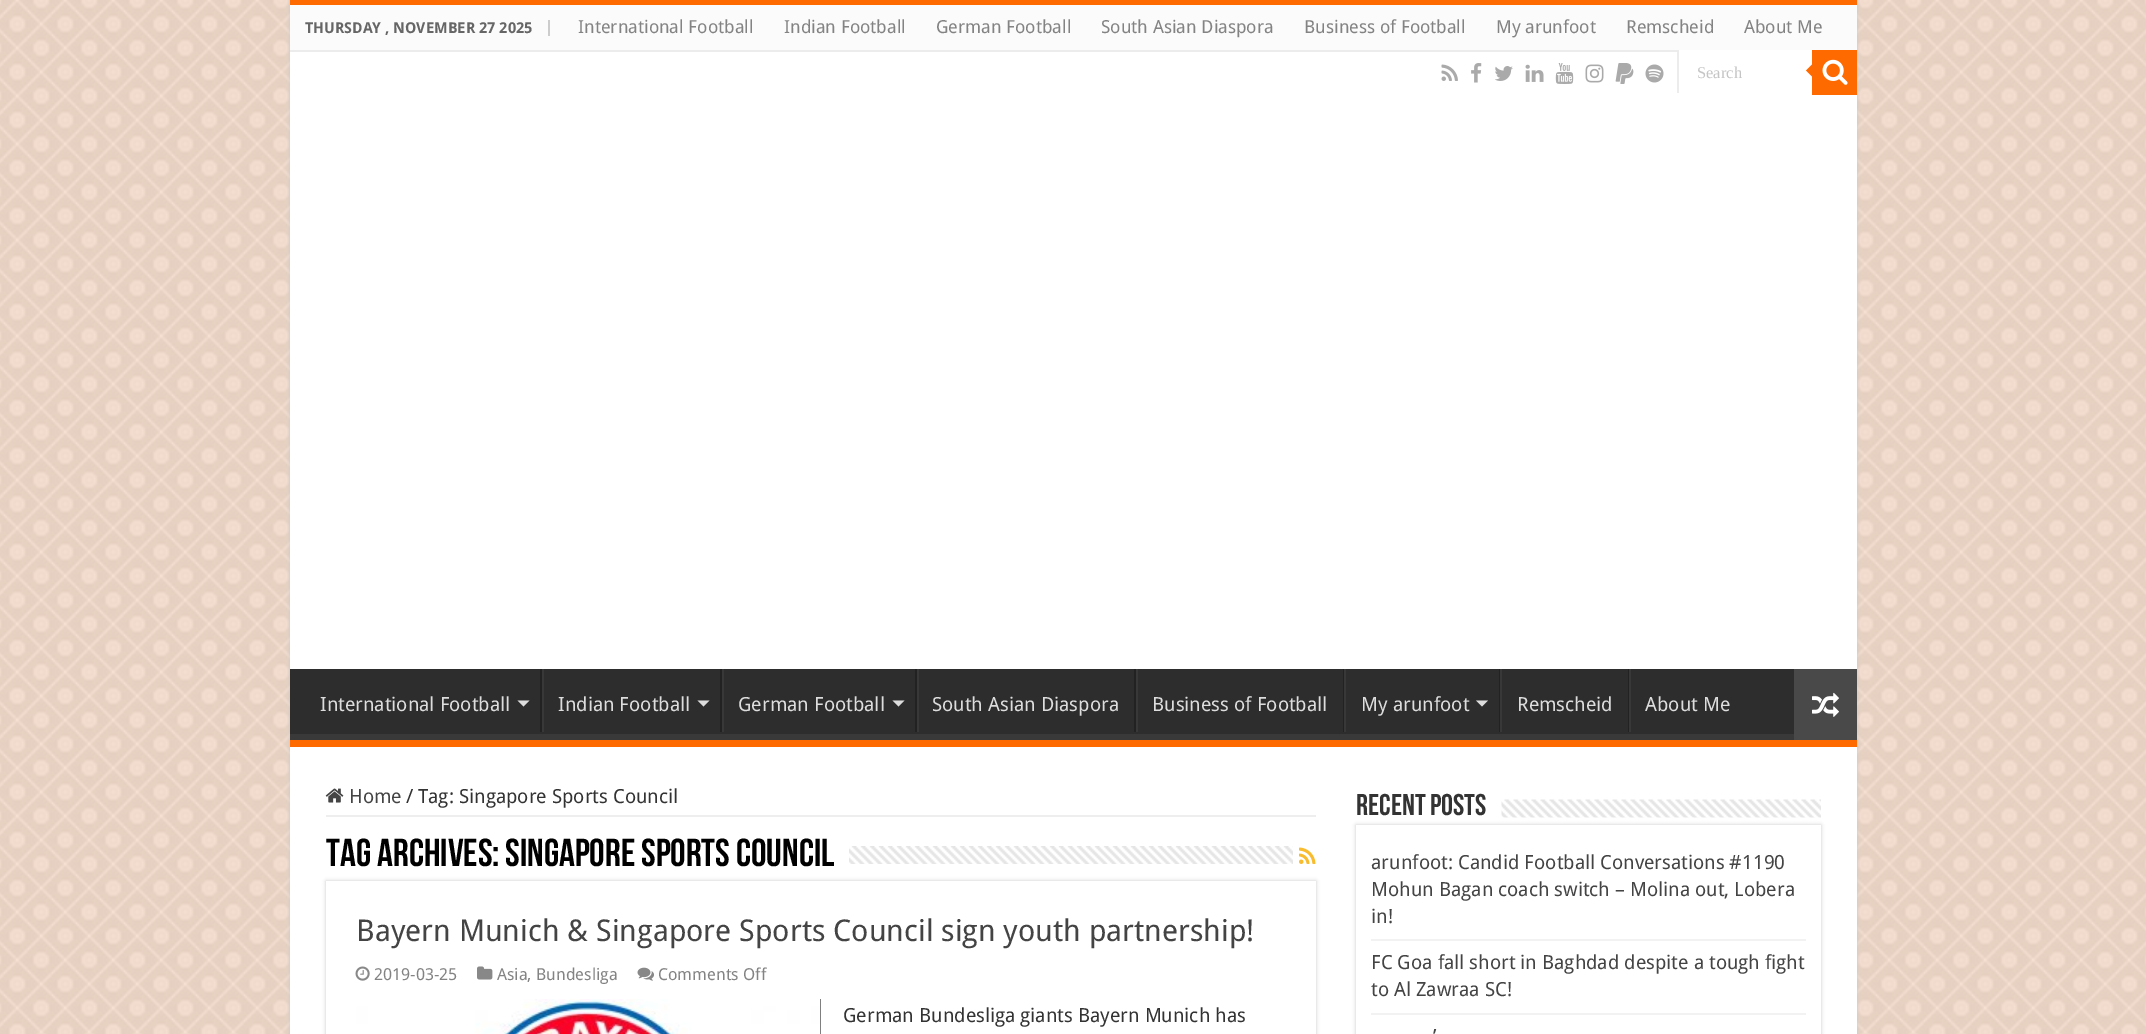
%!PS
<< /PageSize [2146 1034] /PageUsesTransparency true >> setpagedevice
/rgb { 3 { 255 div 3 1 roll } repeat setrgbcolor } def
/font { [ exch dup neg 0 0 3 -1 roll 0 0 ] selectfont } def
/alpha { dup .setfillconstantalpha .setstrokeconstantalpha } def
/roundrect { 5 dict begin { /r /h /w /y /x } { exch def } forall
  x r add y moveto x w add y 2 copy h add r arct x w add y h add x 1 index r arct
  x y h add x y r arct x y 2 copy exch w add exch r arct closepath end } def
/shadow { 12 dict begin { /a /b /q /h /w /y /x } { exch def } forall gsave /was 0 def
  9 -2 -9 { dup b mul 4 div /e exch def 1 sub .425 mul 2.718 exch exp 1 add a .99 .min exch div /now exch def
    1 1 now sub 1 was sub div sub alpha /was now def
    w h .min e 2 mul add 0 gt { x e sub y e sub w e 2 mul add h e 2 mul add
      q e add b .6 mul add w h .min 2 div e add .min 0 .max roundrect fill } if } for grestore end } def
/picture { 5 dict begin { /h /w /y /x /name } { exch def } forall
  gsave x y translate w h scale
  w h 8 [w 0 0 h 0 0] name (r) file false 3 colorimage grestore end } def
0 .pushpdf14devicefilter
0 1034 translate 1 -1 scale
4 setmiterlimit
247 215 193 rgb
0 0 2146 1034 rectfill
(img/1.rgb) 0 0 2146 1034 picture
202 202 202 rgb
290 0 1567 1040 0 2 1 shadow
[
  [290 52 1567 982 255 255 255]
  [290 0 1567 5 255 106 0]
  [290 5 1567 45 251 251 251]
  [290 50 1387 2 236 236 236]
  [548 20 2 16 204 204 204]
] { aload pop rgb rectfill } forall
(img/2.rgb) 1441 64 17 17 picture
(img/3.rgb) 1471 63 11 20 picture
(img/4.rgb) 1495 66 18 15 picture
(img/5.rgb) 1525 64 19 18 picture
(img/6.rgb) 1555 63 19 21 picture
(img/7.rgb) 1585 64 19 19 picture
(img/8.rgb) 1615 63 19 21 picture
(img/9.rgb) 1645 64 19 19 picture
[
  [1679 50 133 2 255 255 255]
  [1677 50 2 43 236 236 236]
  [1812 50 45 45 255 106 0]
] { aload pop rgb rectfill } forall
(img/10.rgb) 1822 59 26 26 picture
1812 64.5 moveto 1812 76.5 lineto 1806 70.5 lineto closepath fill
45 45 45 rgb
290 669 1504 65 rectfill
gsave
290 669 1567 71 rectclip
57 57 57 rgb
141 520 moveto 2006 520 lineto 2006 888 lineto 141 888 lineto closepath 288 660 moveto 1856 660 lineto 1856 660 1857 661 1857 662 curveto 1857 732 lineto 1857 733 1856 734 1856 734 curveto 288 734 lineto 287 734 286 733 286 732 curveto 286 662 lineto 286 661 287 660 288 660 curveto closepath eofill
grestore
255 106 0 rgb
290 740 1567 7 rectfill
221 221 221 rgb
517.5 700.5 moveto 529.5 700.5 lineto 523.5 706.5 lineto closepath fill
34 34 34 rgb
540 669 2 63 rectfill
56 56 56 rgb
542 669 2 63 rectfill
221 221 221 rgb
697.5 700.5 moveto 709.5 700.5 lineto 703.5 706.5 lineto closepath fill
34 34 34 rgb
720 669 2 63 rectfill
56 56 56 rgb
722 669 2 63 rectfill
221 221 221 rgb
892.5 700.5 moveto 904.5 700.5 lineto 898.5 706.5 lineto closepath fill
[
  [915 669 2 63 34 34 34]
  [917 669 2 63 56 56 56]
  [1134 669 2 63 34 34 34]
  [1136 669 2 63 56 56 56]
  [1343 669 1 63 34 34 34]
  [1344 669 2 63 56 56 56]
] { aload pop rgb rectfill } forall
221 221 221 rgb
1476 700.5 moveto 1488 700.5 lineto 1482 706.5 lineto closepath fill
[
  [1499 669 1 63 34 34 34]
  [1500 669 2 63 56 56 56]
  [1628 669 1 63 34 34 34]
  [1629 669 2 63 56 56 56]
  [1794 669 63 71 73 73 73]
] { aload pop rgb rectfill } forall
(img/11.rgb) 1812 692 27 25 picture
238 238 238 rgb
326 815 990 2 rectfill
(img/12.rgb) 325 788 19 15 picture
(img/13.rgb) 849 846 444 18 picture
(img/14.rgb) 1299 847 17 17 picture
202 202 202 rgb
326 881 990 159 0 2 1 shadow
255 255 255 rgb
326 881 990 153 rectfill
(img/15.rgb) 355 966 15 15 picture
(img/16.rgb) 477 966 16 14 picture
(img/17.rgb) 637 967 17 14 picture
0 0 0 rgb
820 999 1 35 rectfill
(img/18.rgb) 356 999 465 35 picture
(img/19.rgb) 1501 799 320 19 picture
gsave
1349 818 moveto 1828 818 lineto 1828 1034 lineto 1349 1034 lineto closepath 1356 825 moveto 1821 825 lineto 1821 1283 lineto 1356 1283 lineto closepath eoclip newpath
202 202 202 rgb
1356 825 465 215 0 2 1 shadow
grestore
242 242 242 rgb
1371 939 435 2 rectfill
1371 1013 435 2 rectfill
/DroidSans-Bold 15 font
102 102 102 rgb
305 33 moveto (THURSDAY , NOVEMBER 27 2025) show
/DroidSans-Regular 18 font
131 131 131 rgb
[
  [(International Football) 578 33]
  [(Indian Football) 784 33]
  [(German Football) 936 33]
  [(South Asian Diaspora) 1101 33]
  [(Business of Football) 1304 33]
  [(My arunfoot) 1496 33]
  [(Remscheid) 1626 33]
  [(About Me) 1744 33]
] { aload pop moveto show } forall
/LiberationSerif-Regular 16.5 font
197 197 197 rgb
1697 78 moveto (Search) show
/DroidSans-Regular 19.5 font
221 221 221 rgb
[
  [(International Football) 320 711]
  [(Indian Football) 558 711]
  [(German Football) 738 711]
  [(South Asian Diaspora) 932 711]
  [(Business of Football) 1152 711]
  [(My arunfoot) 1361 711]
  [(Remscheid) 1517 711]
  [(About Me) 1645 711]
] { aload pop moveto show } forall
68 68 68 rgb
349 803 moveto (Home) show
51 51 51 rgb
406 803 moveto (/) show
418 803 moveto (Tag: Singapore Sports Council) show
gsave
326 831 990 50 rectclip
/BebasNeue-Bold 39 font
0 0 0 rgb
326 866 moveto (Tag Archives:) show
grestore
/BebasNeue-Bold 39 font
0 0 0 rgb
505 866 moveto (Singapore Sports Council) show
/DroidSans-Regular 30 font
68 68 68 rgb
356 941 moveto (Bayern Munich & Singapore Sports Council sign youth partnership!) show
/DroidSans-Regular 16.5 font
131 131 131 rgb
[
  [(2019-03-25) 374 980]
  [(Asia, Bundesliga) 497 980]
  [(Comments Off) 658 980]
] { aload pop moveto show } forall
/DroidSans-Regular 19.5 font
51 51 51 rgb
843 1022 moveto (German Bundesliga giants Bayern Munich has) show
/BebasNeue-Bold 30 font
1356 815 moveto (Recent Posts) show
/DroidSans-Regular 19.5 font
68 68 68 rgb
[
  [(arunfoot: Candid Football Conversations #1190) 1371 869]
  [(Mohun Bagan coach switch – Molina out, Lobera) 1371 896]
  [(in!) 1371 923]
  [(FC Goa fall short in Baghdad despite a tough fight) 1371 969]
  [(to Al Zawraa SC!) 1371 996]
  [(’) 1433 1043]
] { aload pop moveto show } forall
.poppdf14devicefilter showpage
